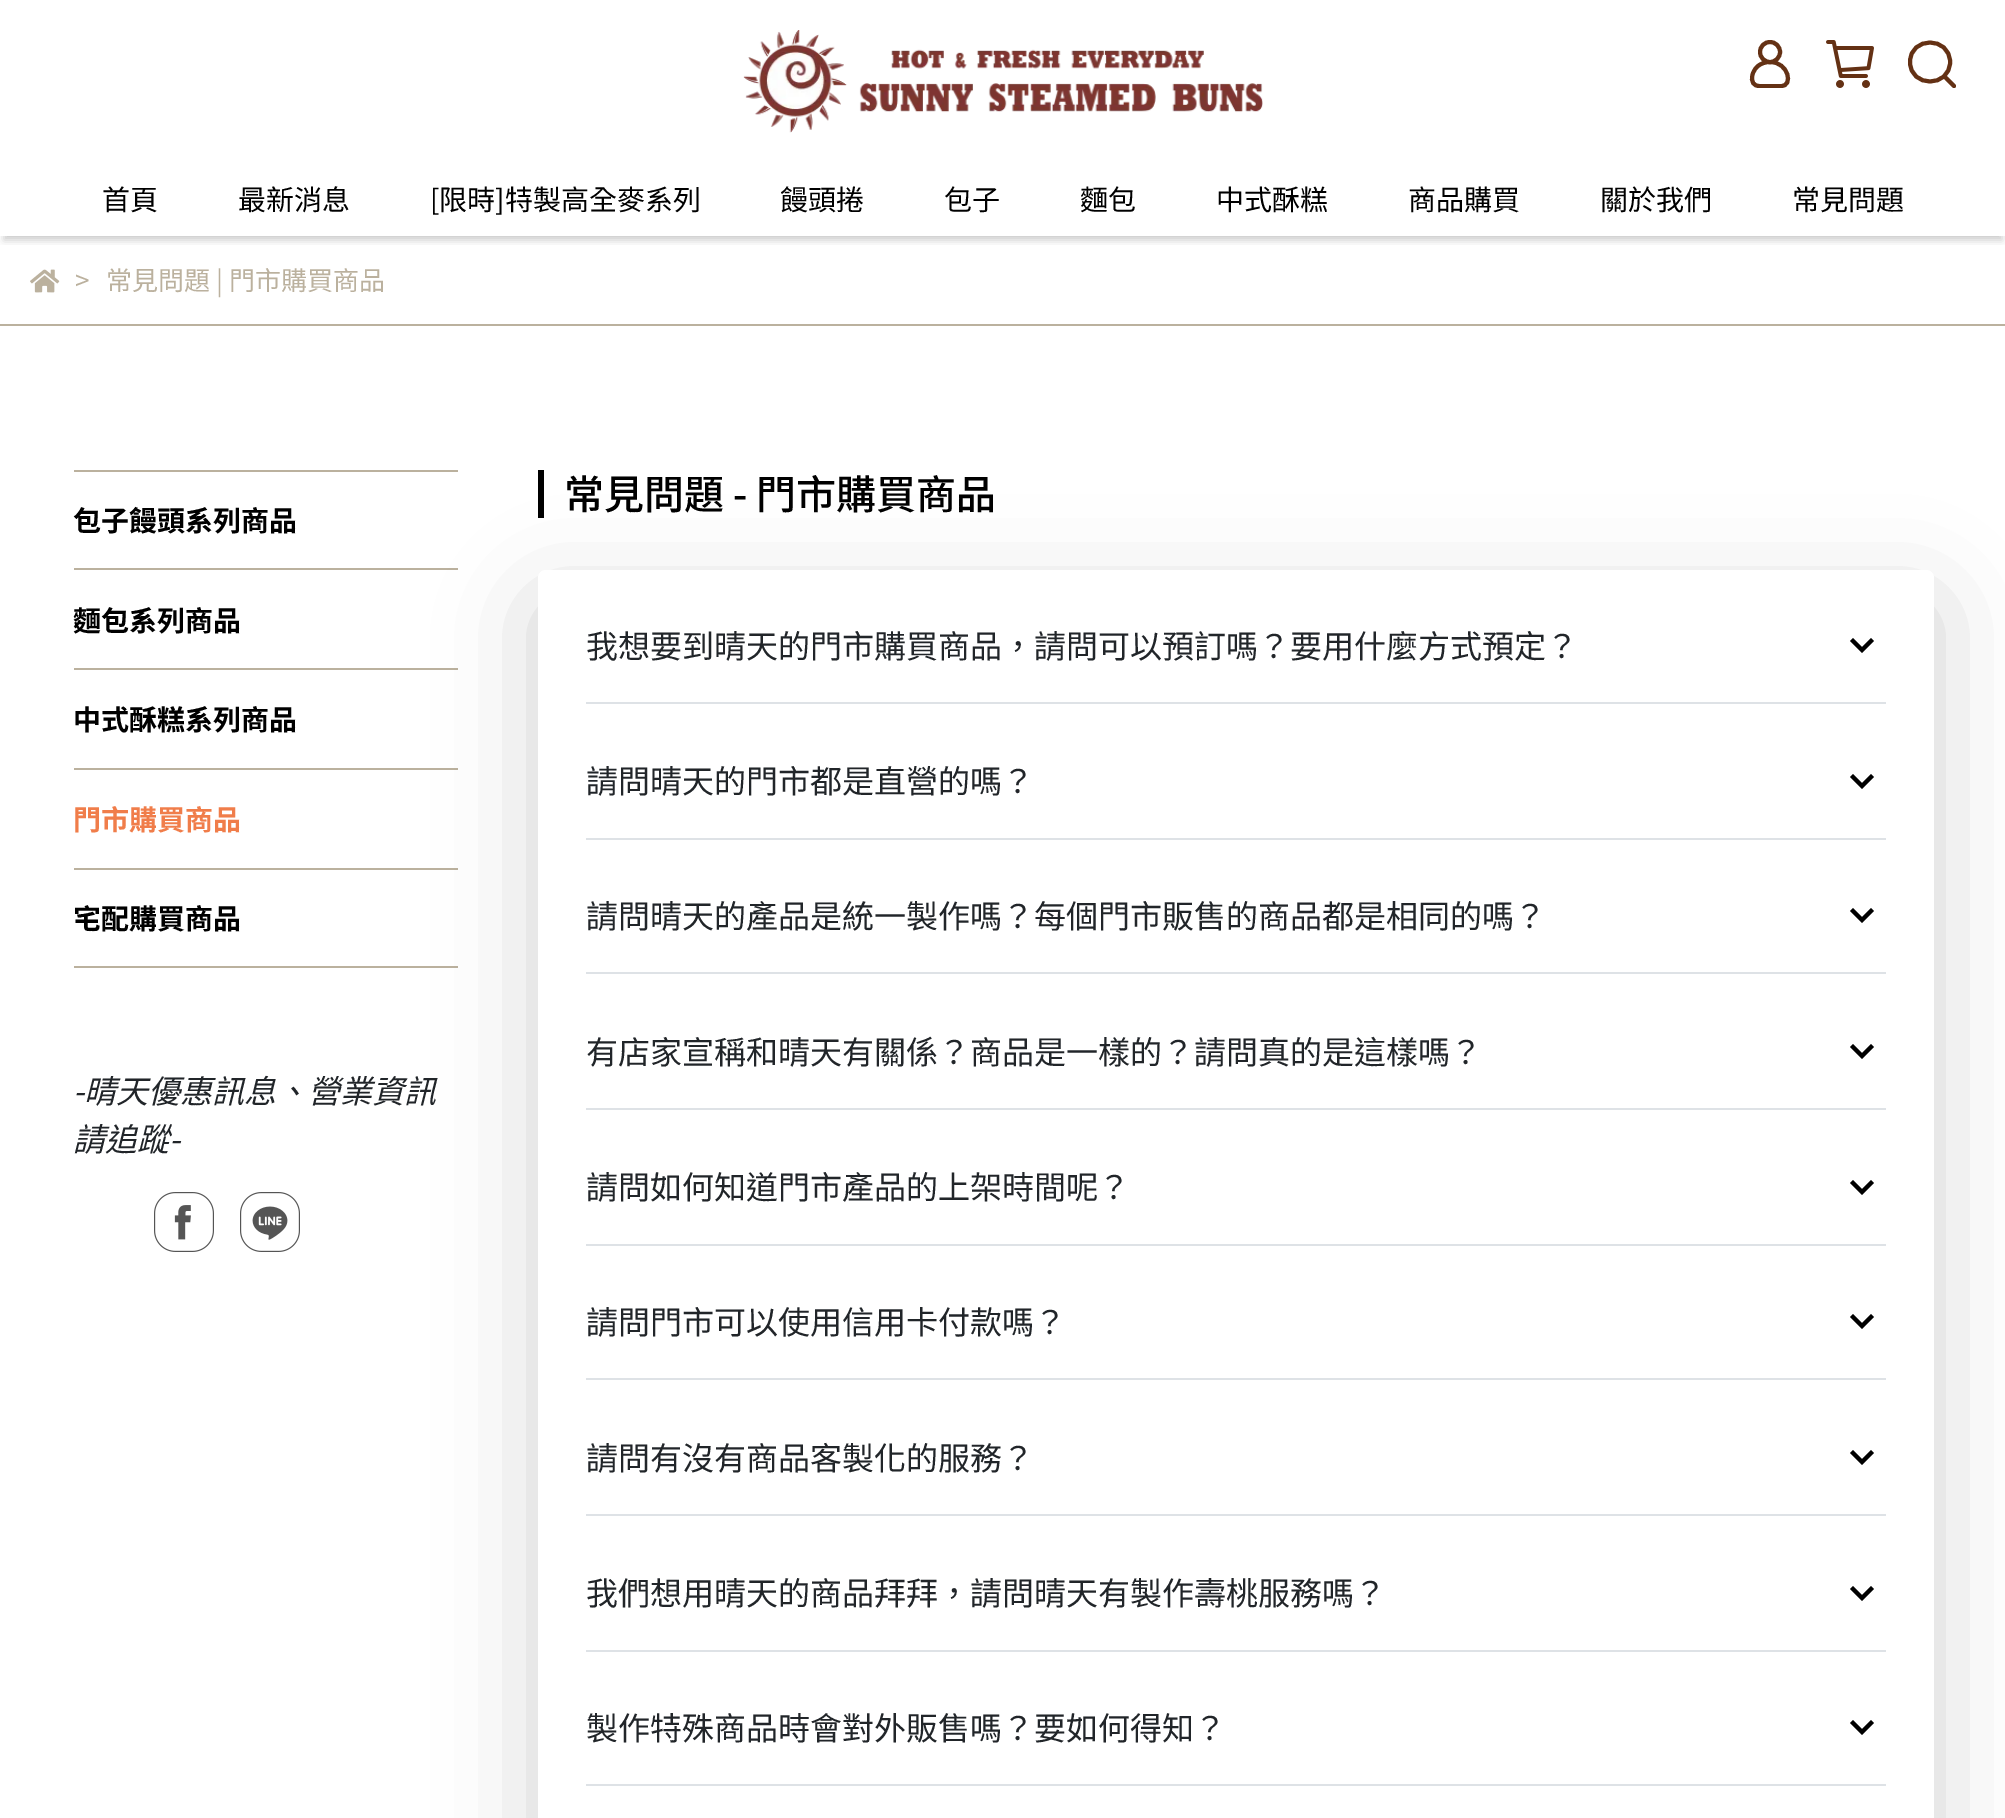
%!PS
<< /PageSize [2005 1818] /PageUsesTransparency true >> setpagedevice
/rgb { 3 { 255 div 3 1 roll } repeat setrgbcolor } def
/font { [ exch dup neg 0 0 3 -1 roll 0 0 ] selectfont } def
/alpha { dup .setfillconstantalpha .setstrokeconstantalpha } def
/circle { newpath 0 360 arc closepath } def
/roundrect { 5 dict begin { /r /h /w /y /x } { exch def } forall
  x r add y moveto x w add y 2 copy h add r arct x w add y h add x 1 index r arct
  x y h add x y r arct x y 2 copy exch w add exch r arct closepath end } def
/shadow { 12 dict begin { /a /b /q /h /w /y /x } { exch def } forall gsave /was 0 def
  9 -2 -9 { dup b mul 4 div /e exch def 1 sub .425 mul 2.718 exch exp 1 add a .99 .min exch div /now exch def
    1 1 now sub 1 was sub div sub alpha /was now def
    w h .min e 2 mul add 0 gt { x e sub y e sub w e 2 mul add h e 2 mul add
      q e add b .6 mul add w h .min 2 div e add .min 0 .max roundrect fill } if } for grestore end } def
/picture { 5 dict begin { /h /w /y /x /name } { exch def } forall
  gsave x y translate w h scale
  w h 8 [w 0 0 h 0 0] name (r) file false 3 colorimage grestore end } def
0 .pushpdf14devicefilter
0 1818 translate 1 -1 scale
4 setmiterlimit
255 255 255 rgb
0 0 2005 1818 rectfill
(img/1.rgb) 743 30 520 103 picture
100 49 20 rgb
4 setlinewidth
1770 52 10 circle stroke
gsave
1746 40 48 48 rectclip
1781 86 moveto 1766.5 86 lineto 1763 86 1759.5 86.5 1756.5 85.5 curveto 1750.5 83.5 1751.5 76 1753.5 72 curveto 1754.5 70 1755.5 68 1757.5 66.5 curveto 1760.5 63.5 1765.5 62 1770 62 curveto 1789 62 1793.5 86.5 1781 86 curveto closepath stroke
grestore
(img/2.rgb) 1826 40 48 48 picture
1 setlinecap
1 setlinejoin
1950 62 moveto 1950 88 1910 88 1910 62 curveto 1910 36 1950 36 1950 62 curveto closepath 1946 78 moveto 1954 86 lineto stroke
gsave
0 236 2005 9 rectclip
0 0 0 rgb
4 174 1998 66 0 4 0.2 shadow
grestore
187 177 158 rgb
0 324 2005 2 rectfill
(img/3.rgb) 30 269 30 24 picture
[
  [74 470 384 2 187 177 158]
  [74 568 384 2 187 177 158]
  [74 668 384 2 187 177 158]
  [74 768 384 2 187 177 158]
  [74 868 384 2 187 177 158]
  [74 966 384 2 187 177 158]
] { aload pop rgb rectfill } forall
(img/4.rgb) 154 1192 60 60 picture
(img/5.rgb) 240 1192 60 60 picture
0 0 0 rgb
538 470 6 48 rectfill
538 602 1396 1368 8 48 0.18 shadow
255 255 255 rgb
538 570 1396 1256 8 roundrect fill
222 226 230 rgb
586 702 1300 2 rectfill
0 0 0 rgb
1862 653 moveto 1850 641 lineto 1853 638 lineto 1862 647 lineto 1871 638 lineto 1874 641 lineto closepath fill
222 226 230 rgb
586 838 1300 2 rectfill
0 0 0 rgb
1862 789 moveto 1850 777 lineto 1853 774 lineto 1862 783 lineto 1871 774 lineto 1874 777 lineto closepath fill
222 226 230 rgb
586 972 1300 2 rectfill
0 0 0 rgb
1862 923 moveto 1850 911 lineto 1853 908 lineto 1862 917 lineto 1871 908 lineto 1874 911 lineto closepath fill
222 226 230 rgb
586 1108 1300 2 rectfill
0 0 0 rgb
1862 1059 moveto 1850 1047 lineto 1853 1044 lineto 1862 1053 lineto 1871 1044 lineto 1874 1047 lineto closepath fill
222 226 230 rgb
586 1244 1300 2 rectfill
0 0 0 rgb
1862 1195 moveto 1850 1183 lineto 1853 1180 lineto 1862 1189 lineto 1871 1180 lineto 1874 1183 lineto closepath fill
222 226 230 rgb
586 1378 1300 2 rectfill
0 0 0 rgb
1862 1329 moveto 1850 1317 lineto 1853 1314 lineto 1862 1323 lineto 1871 1314 lineto 1874 1317 lineto closepath fill
222 226 230 rgb
586 1514 1300 2 rectfill
0 0 0 rgb
1862 1465 moveto 1850 1453 lineto 1853 1450 lineto 1862 1459 lineto 1871 1450 lineto 1874 1453 lineto closepath fill
222 226 230 rgb
586 1650 1300 2 rectfill
0 0 0 rgb
1862 1601 moveto 1850 1589 lineto 1853 1586 lineto 1862 1595 lineto 1871 1586 lineto 1874 1589 lineto closepath fill
222 226 230 rgb
586 1784 1300 2 rectfill
0 0 0 rgb
1862 1735 moveto 1850 1723 lineto 1853 1720 lineto 1862 1729 lineto 1871 1720 lineto 1874 1723 lineto closepath fill
/NotoSansTC-Regular 28 font
[
  [(首頁) 102 210]
  [(最新消息) 238 210]
  [([限時]特製高全麥系列) 430 210]
  [(饅頭捲) 780 210]
  [(包子) 944 210]
  [(麵包) 1080 210]
  [(中式酥糕) 1216 210]
  [(商品購買) 1408 210]
  [(關於我們) 1600 210]
  [(常見問題) 1792 210]
] { aload pop moveto show } forall
/NotoSansTC-Regular 26 font
187 177 158 rgb
75 290 moveto (>) show
106 290 moveto (常見問題 | 門市購買商品) show
/NotoSansTC-Bold 28 font
0 0 0 rgb
[
  [(包子饅頭系列商品) 73 531]
  [(麵包系列商品) 73 631]
  [(中式酥糕系列商品) 73 730]
] { aload pop moveto show } forall
240 125 74 rgb
73 830 moveto (門市購買商品) show
0 0 0 rgb
73 929 moveto (宅配購買商品) show
/NotoSansTC-Italic 32 font
33 37 41 rgb
73 1103 moveto (-晴天優) show
/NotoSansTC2-Italic 32 font
180 1103 moveto (惠) show
/NotoSansTC-Italic 32 font
212 1103 moveto (訊息、營業資訊) show
73 1151 moveto (請) show
/NotoSansTC2-Italic 32 font
105 1151 moveto (追) show
/NotoSansTC-Italic 32 font
137 1151 moveto (蹤-) show
/NotoSansTC-Medium 40 font
0 0 0 rgb
564 509 moveto (常見問題 - 門市購買商品) show
/NotoSansTC-Regular 32 font
33 37 41 rgb
[
  [(我想要到晴天的門市購買商品，請問可以預訂嗎？要用什麼方式預定？) 586 658]
  [(請問晴天的門市都是直營的嗎？) 586 793]
  [(請問晴天的產品是統一製作嗎？每個門市販售的商品都是相同的嗎？) 586 928]
] { aload pop moveto show } forall
/NotoSansCJKTC-Regular 32 font
586 1064 moveto (有店家宣稱和晴天有關係？商品是一樣的？請問真的是這樣) show
/NotoSansTC-Regular 32 font
1418 1064 moveto (嗎) show
/NotoSansCJKTC-Regular 32 font
[
  [(？) 1450 1064]
  [(請問如何知道門市產品的上架時間呢？) 586 1199]
  [(請問門市可以使用信用卡付款) 586 1334]
] { aload pop moveto show } forall
/NotoSansTC-Regular 32 font
1002 1334 moveto (嗎) show
/NotoSansCJKTC-Regular 32 font
1034 1334 moveto (？) show
/NotoSansTC-Regular 32 font
586 1470 moveto (請問有沒有商品客製化的服務？) show
/NotoSansCJKTC-Regular 32 font
586 1605 moveto (我們想用晴天的商品拜拜，請問晴天有製作壽桃服務) show
/NotoSansTC-Regular 32 font
1322 1605 moveto (嗎) show
/NotoSansCJKTC-Regular 32 font
1354 1605 moveto (？) show
/NotoSansTC-Regular 32 font
586 1740 moveto (製作特殊商品時會對外販售嗎？要如何得知？) show
.poppdf14devicefilter showpage
